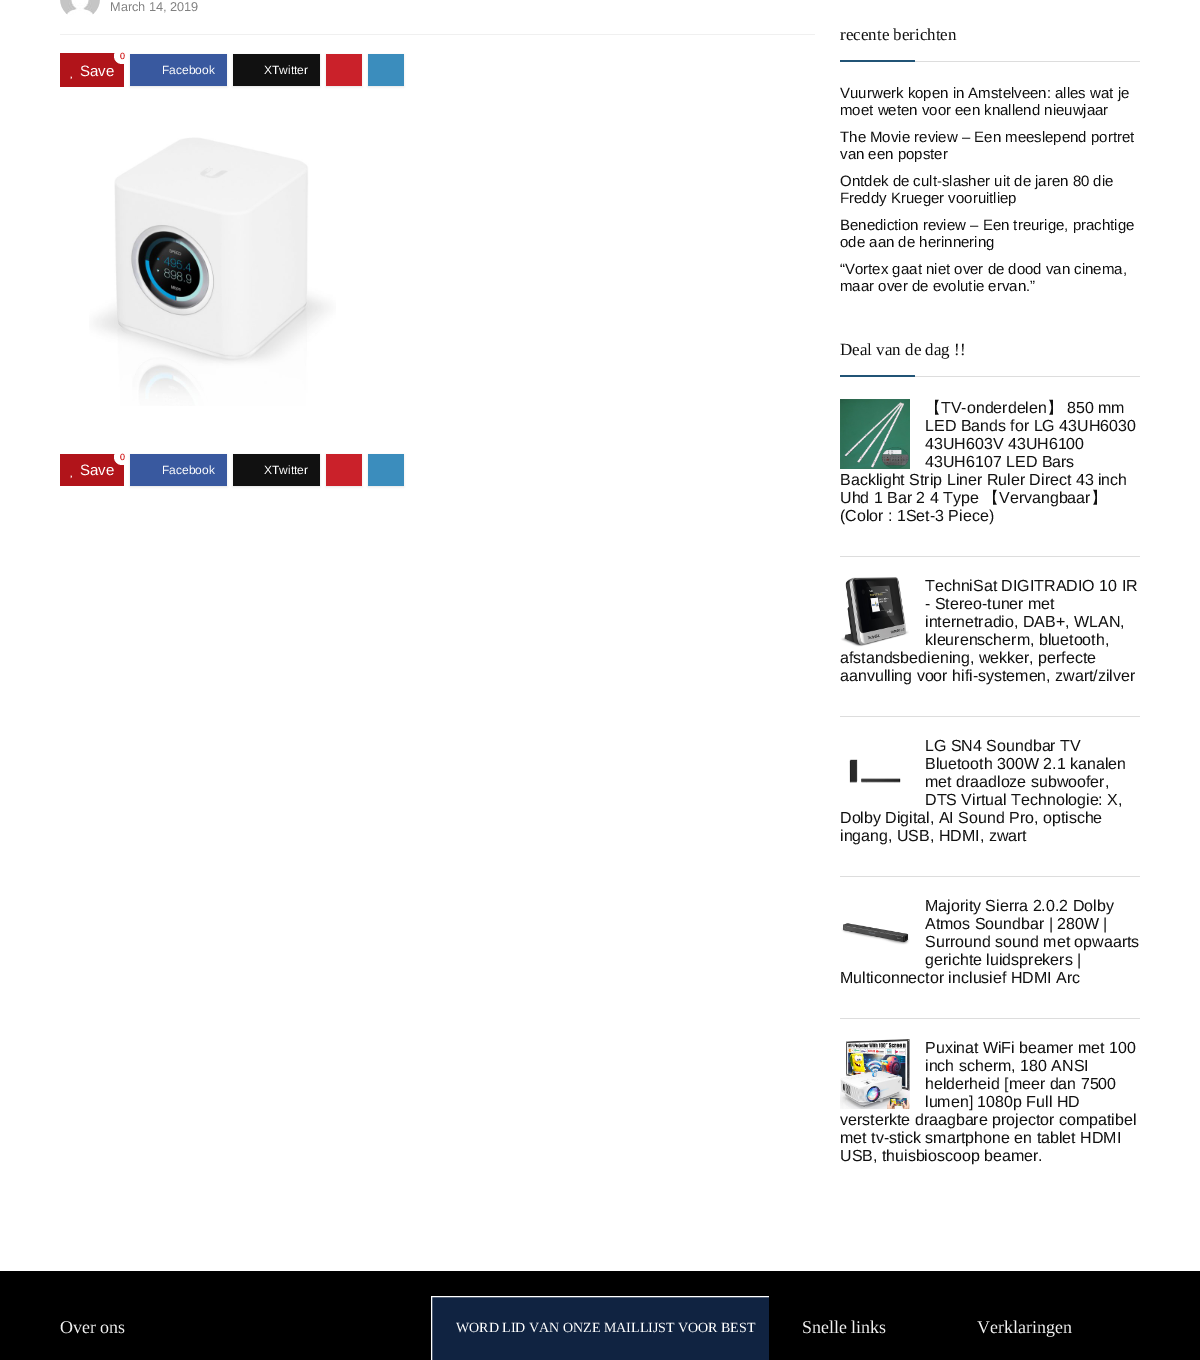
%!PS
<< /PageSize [1200 1360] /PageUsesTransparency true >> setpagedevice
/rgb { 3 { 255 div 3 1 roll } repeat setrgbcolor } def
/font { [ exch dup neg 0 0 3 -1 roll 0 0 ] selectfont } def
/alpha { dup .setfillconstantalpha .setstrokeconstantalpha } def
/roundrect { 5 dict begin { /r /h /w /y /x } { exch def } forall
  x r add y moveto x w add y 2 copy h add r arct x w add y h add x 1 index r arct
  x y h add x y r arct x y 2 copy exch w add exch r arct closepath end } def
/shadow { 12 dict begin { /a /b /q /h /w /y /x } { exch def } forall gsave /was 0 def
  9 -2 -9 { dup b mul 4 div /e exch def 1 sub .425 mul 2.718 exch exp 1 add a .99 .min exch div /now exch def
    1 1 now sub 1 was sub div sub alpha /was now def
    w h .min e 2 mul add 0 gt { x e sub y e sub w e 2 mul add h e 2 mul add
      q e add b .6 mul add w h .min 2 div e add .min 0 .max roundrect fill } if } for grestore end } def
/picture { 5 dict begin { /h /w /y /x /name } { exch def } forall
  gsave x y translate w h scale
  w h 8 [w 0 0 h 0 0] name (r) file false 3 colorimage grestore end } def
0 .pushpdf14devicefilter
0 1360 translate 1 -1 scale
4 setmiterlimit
255 255 255 rgb
0 0 1200 1360 rectfill
240 240 240 rgb
60 34 755 1 rectfill
(img/1.rgb) 60 0 40 15 picture
177 20 26 rgb
60 53 64 34 rectfill
gsave
60 50 755 43 rectclip
255 255 255 rgb
114 48 17 16 8 roundrect fill
grestore
(img/2.rgb) 70 76 2 4 picture
228 228 228 rgb
130 55 97 32 0 1 1 shadow
57 89 159 rgb
130 54 97 32 rectfill
228 228 228 rgb
233 55 87 32 0 1 1 shadow
17 17 17 rgb
233 54 87 32 rectfill
228 228 228 rgb
326 55 36 32 0 1 1 shadow
202 33 42 rgb
326 54 36 32 rectfill
228 228 228 rgb
368 55 36 32 0 1 1 shadow
59 141 189 rgb
368 54 36 32 rectfill
(img/3.rgb) 89 137 247 269 picture
177 20 26 rgb
60 454 64 32 rectfill
255 255 255 rgb
114 449 17 16 8 roundrect fill
(img/2.rgb) 70 475 2 4 picture
228 228 228 rgb
130 455 97 32 0 1 1 shadow
57 89 159 rgb
130 454 97 32 rectfill
228 228 228 rgb
233 455 87 32 0 1 1 shadow
17 17 17 rgb
233 454 87 32 rectfill
228 228 228 rgb
326 455 36 32 0 1 1 shadow
202 33 42 rgb
326 454 36 32 rectfill
228 228 228 rgb
368 455 36 32 0 1 1 shadow
[
  [368 454 36 32 59 141 189]
  [915 61 225 1 221 221 221]
  [840 60 75 2 33 84 118]
  [915 376 225 1 221 221 221]
  [840 375 75 2 33 84 118]
  [840 556 300 1 221 221 221]
] { aload pop rgb rectfill } forall
(img/4.rgb) 840 399 70 70 picture
840 716 300 1 rectfill
(img/5.rgb) 841 577 68 70 picture
840 876 300 1 rectfill
(img/6.rgb) 849 759 52 24 picture
840 1018 300 1 rectfill
(img/7.rgb) 841 923 69 22 picture
(img/8.rgb) 840 1039 70 70 picture
0 0 0 rgb
0 1271 1200 89 rectfill
16 35 65 rgb
432 1297 337 63 rectfill
gsave
431 1296 338 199 rectclip
255 255 255 rgb
431.5 1296.5 349 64 rectstroke
grestore
/LiberationSans-Regular 12.75 font
128 128 128 rgb
110 11 moveto (March 14, 2019) show
/LiberationSans-Regular 9 font
204 0 0 rgb
120 59 moveto (0) show
/LiberationSans-Regular 15 font
255 255 255 rgb
80 76 moveto (Save) show
/LiberationSans-Regular 12 font
162 74 moveto (Facebook) show
264 74 moveto (XTwitter) show
/LiberationSans-Regular 9 font
204 0 0 rgb
120 460 moveto (0) show
/LiberationSans-Regular 15 font
255 255 255 rgb
80 475 moveto (Save) show
/LiberationSans-Regular 12 font
162 474 moveto (Facebook) show
264 474 moveto (XTwitter) show
/LiberationSerif-Regular 17 font
17 17 17 rgb
840 40 moveto (recente berichten) show
/LiberationSans-Regular 15 font
[
  [(Vuurwerk kopen in Amstelveen: alles wat je) 840 98]
  [(moet weten voor een knallend nieuwjaar) 840 115]
  [(The Movie review – Een meeslepend portret) 840 142]
  [(van een popster) 840 159]
  [(Ontdek de cult-slasher uit de jaren 80 die) 840 186]
  [(Freddy Krueger vooruitliep) 840 203]
  [(Benediction review – Een treurige, prachtige) 840 230]
  [(ode aan de herinnering) 840 247]
  [(“Vortex gaat niet over de dood van cinema,) 840 274]
  [(maar over de evolutie ervan.”) 840 291]
] { aload pop moveto show } forall
/LiberationSerif-Regular 17 font
840 355 moveto (Deal van de dag !!) show
/WenQuanYiZenHei-Medium 16 font
925 413 moveto (【) show
/LiberationSans-Regular 16 font
941 413 moveto (TV-onderdelen) show
/WenQuanYiZenHei-Medium 16 font
1047 413 moveto (】) show
/LiberationSans-Regular 16 font
[
  [(850 mm) 1067 413]
  [(LED Bands for LG 43UH6030) 925 431]
  [(43UH603V 43UH6100) 925 449]
  [(43UH6107 LED Bars) 925 467]
  [(Backlight Strip Liner Ruler Direct 43 inch) 840 485]
  [(Uhd 1 Bar 2 4 Type) 840 503]
] { aload pop moveto show } forall
/WenQuanYiZenHei-Medium 16 font
983 503 moveto (【) show
/LiberationSans-Regular 16 font
999 503 moveto (Vervangbaar) show
/WenQuanYiZenHei-Medium 16 font
1091 503 moveto (】) show
/LiberationSans-Regular 16 font
[
  [(\(Color : 1Set-3 Piece\)) 840 521]
  [(TechniSat DIGITRADIO 10 IR) 925 591]
  [(- Stereo-tuner met) 925 609]
  [(internetradio, DAB+, WLAN,) 925 627]
  [(kleurenscherm, bluetooth,) 925 645]
  [(afstandsbediening, wekker, perfecte) 840 663]
  [(aanvulling voor hifi-systemen, zwart/zilver) 840 681]
  [(LG SN4 Soundbar TV) 925 751]
  [(Bluetooth 300W 2.1 kanalen) 925 769]
  [(met draadloze subwoofer,) 925 787]
  [(DTS Virtual Technologie: X,) 925 805]
  [(Dolby Digital, AI Sound Pro, optische) 840 823]
  [(ingang, USB, HDMI, zwart) 840 841]
  [(Majority Sierra 2.0.2 Dolby) 925 911]
  [(Atmos Soundbar | 280W |) 925 929]
  [(Surround sound met opwaarts) 925 947]
  [(gerichte luidsprekers |) 925 965]
  [(Multiconnector inclusief HDMI Arc) 840 983]
  [(Puxinat WiFi beamer met 100) 925 1053]
  [(inch scherm, 180 ANSI) 925 1071]
  [(helderheid [meer dan 7500) 925 1089]
  [(lumen] 1080p Full HD) 925 1107]
  [(versterkte draagbare projector compatibel) 840 1125]
  [(met tv-stick smartphone en tablet HDMI) 840 1143]
  [(USB, thuisbioscoop beamer.) 840 1161]
] { aload pop moveto show } forall
/LiberationSerif-Regular 18 font
241 241 241 rgb
60 1333 moveto (Over ons) show
/LiberationSerif-Regular 14 font
255 255 255 rgb
456 1332 moveto (WORD LID VAN ONZE MAILLIJST VOOR BEST) show
/LiberationSerif-Regular 18 font
241 241 241 rgb
802 1333 moveto (Snelle links) show
977 1333 moveto (Verklaringen) show
.poppdf14devicefilter showpage
